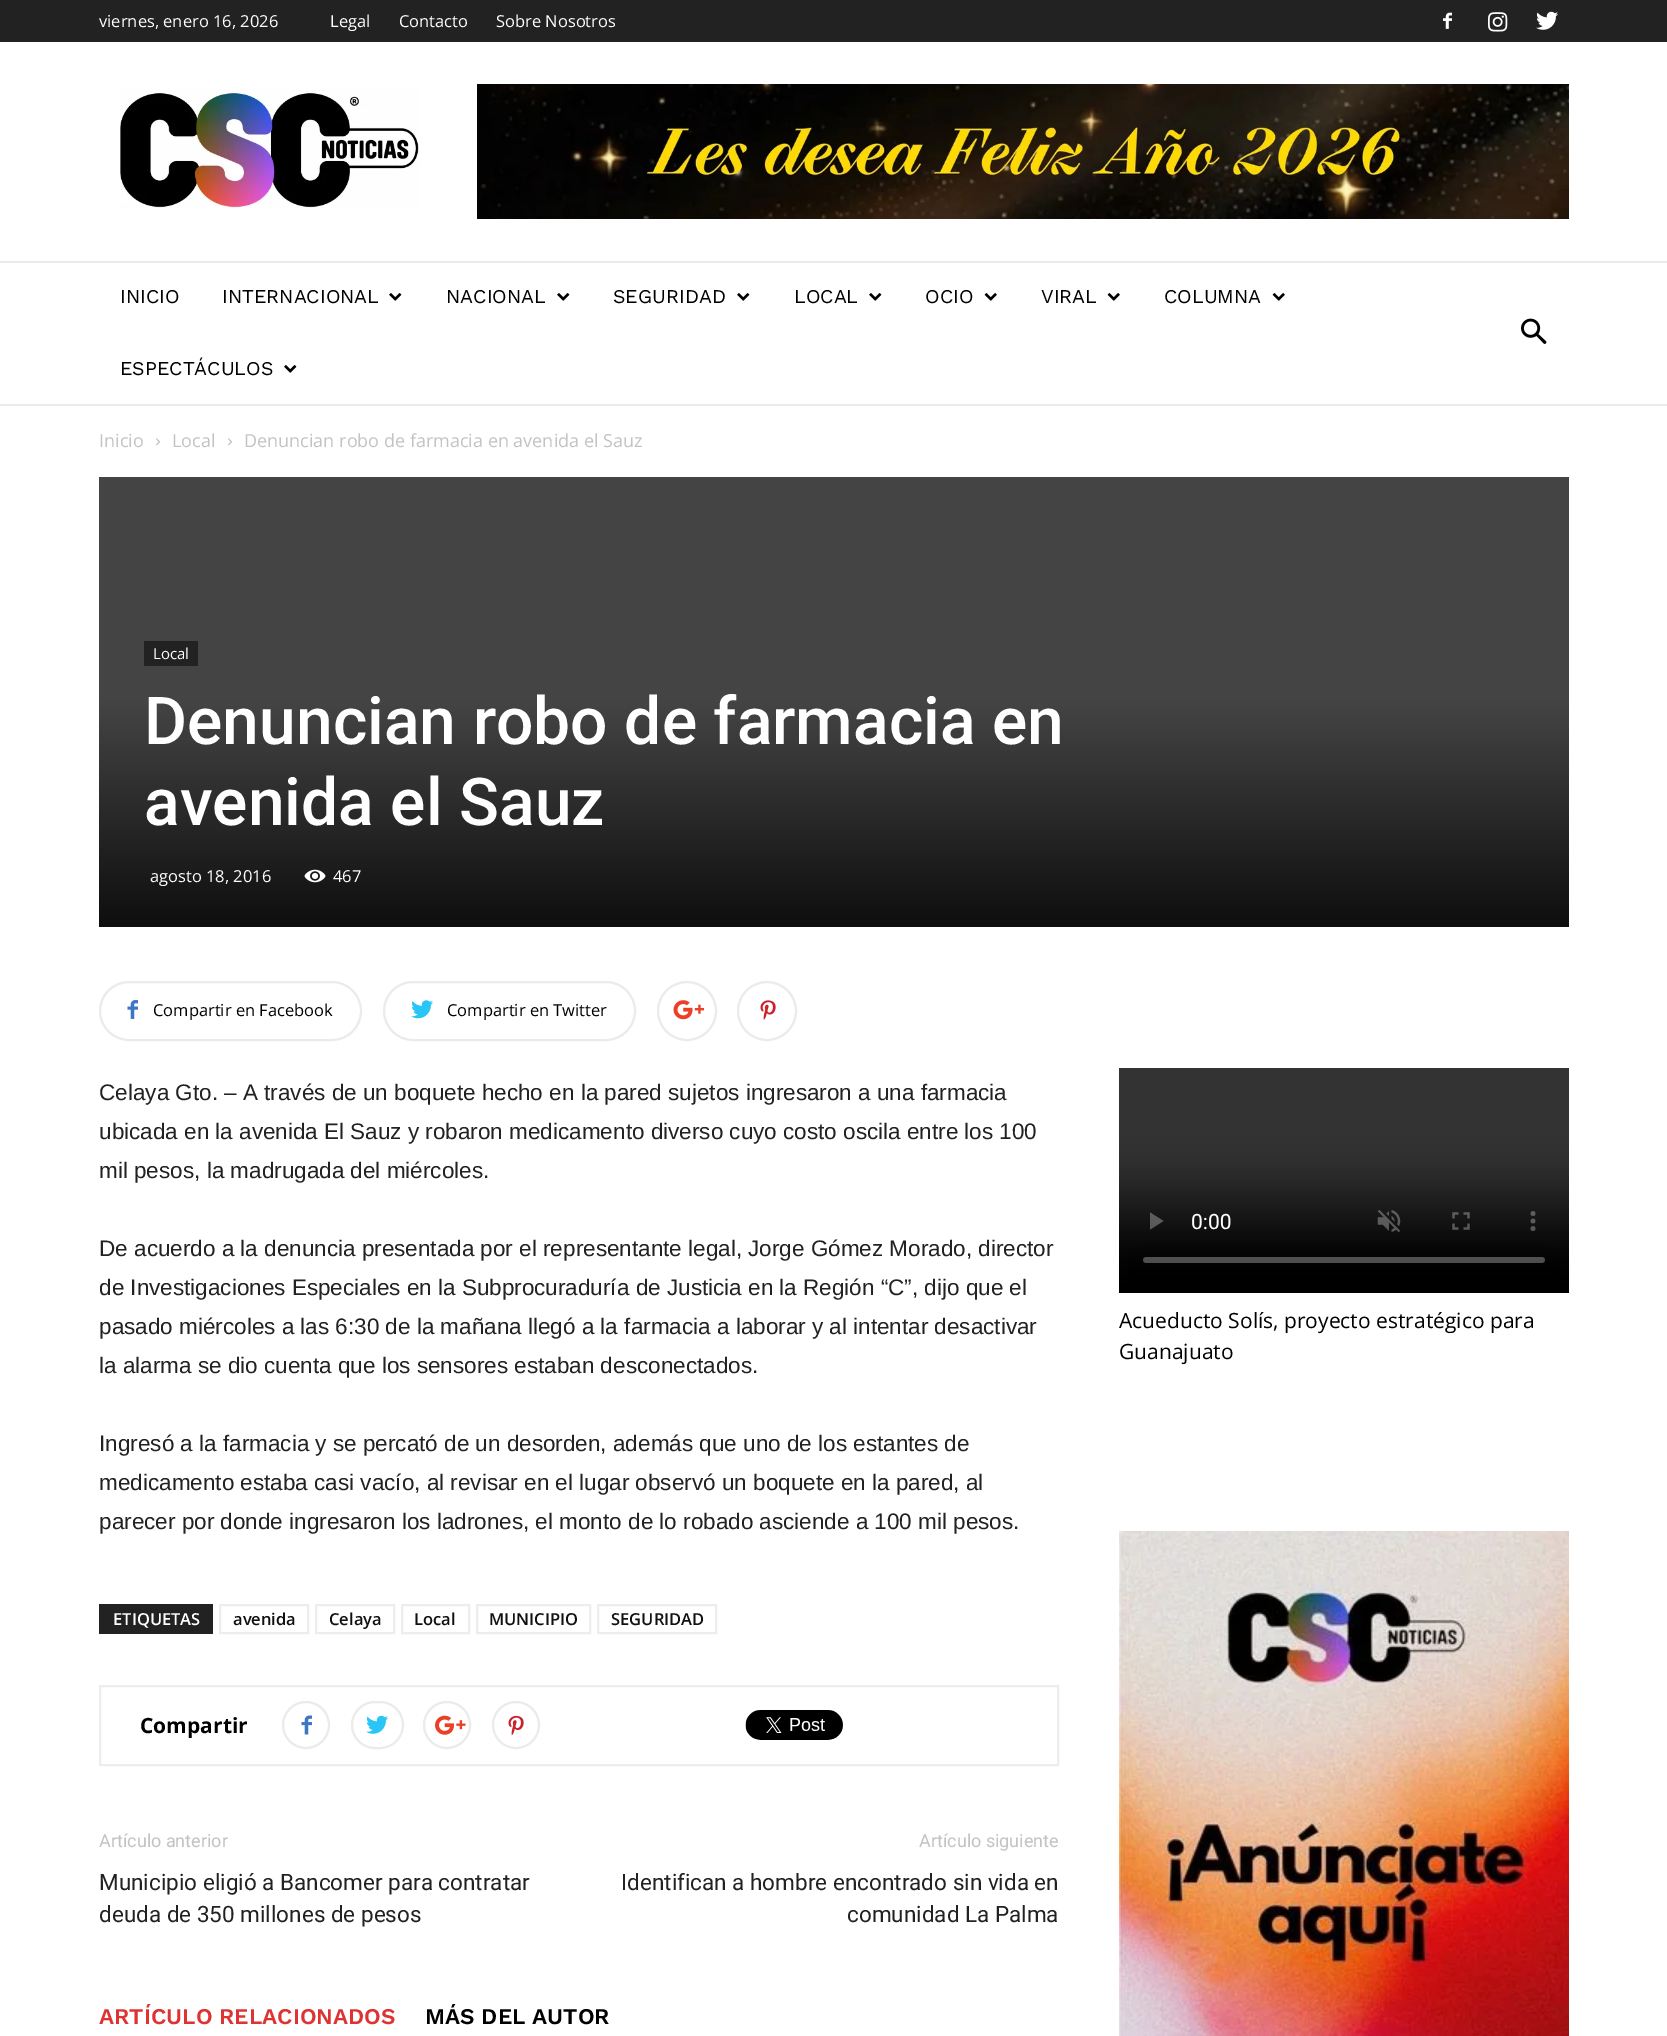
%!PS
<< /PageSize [1667 2036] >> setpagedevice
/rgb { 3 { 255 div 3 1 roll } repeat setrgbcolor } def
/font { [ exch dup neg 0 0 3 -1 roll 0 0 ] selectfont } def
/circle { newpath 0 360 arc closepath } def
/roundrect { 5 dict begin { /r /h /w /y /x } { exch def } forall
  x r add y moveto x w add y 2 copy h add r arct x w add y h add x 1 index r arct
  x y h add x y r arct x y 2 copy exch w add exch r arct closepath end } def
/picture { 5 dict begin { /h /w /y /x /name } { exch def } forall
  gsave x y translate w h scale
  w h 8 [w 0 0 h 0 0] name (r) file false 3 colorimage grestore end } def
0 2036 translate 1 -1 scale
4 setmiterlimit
255 255 255 rgb
0 0 1667 2036 rectfill
34 34 34 rgb
0 0 1667 42 rectfill
(img/1.rgb) 1443 12 9 17 picture
(img/2.rgb) 1488 12 20 20 picture
(img/3.rgb) 1536 11 22 19 picture
(img/4.rgb) 120 89 300 119 picture
(img/5.rgb) 477 84 1092 135 picture
235 235 235 rgb
0 261 1667 2 rectfill
(img/6.rgb) 389 293 13 8 picture
(img/6.rgb) 557 293 13 8 picture
(img/6.rgb) 737 293 13 8 picture
(img/6.rgb) 869 293 13 8 picture
(img/7.rgb) 984 293 13 8 picture
(img/7.rgb) 1107 293 13 8 picture
(img/7.rgb) 1272 293 13 8 picture
(img/6.rgb) 284 365 13 8 picture
(img/8.rgb) 1521 318 26 26 picture
0 404 1667 2 rectfill
(img/9.rgb) 156 438 4 8 picture
(img/9.rgb) 228 438 4 8 picture
68 68 68 rgb
99 477 1470 225 rectfill
34 34 34 rgb
144 641 54 25 rectfill
gsave 99 702 moveto 1569 702 lineto 1569 927 lineto 99 927 lineto closepath clip newpath
<< /ShadingType 2 /ColorSpace /DeviceRGB /Coords [834 702 834 927] /Extend [true true] /Function << /FunctionType 2 /Domain [0 1] /C0 [0.267 0.267 0.267] /C1 [0.055 0.055 0.055] /N 1 >> >> shfill grestore
(img/10.rgb) 304 869 22 14 picture
235 235 235 rgb
2 setlinewidth
100 982 261 58 29 roundrect stroke
(img/11.rgb) 127 1000 11 19 picture
384 982 251 58 29 roundrect stroke
(img/12.rgb) 411 1000 22 19 picture
687 1011 29 circle stroke
(img/13.rgb) 673 1000 31 20 picture
767 1011 29 circle stroke
(img/14.rgb) 760 1000 16 20 picture
34 34 34 rgb
99 1604 114 30 rectfill
237 237 237 rgb
220 1605 88 28 rectstroke
316 1605 78 28 rectstroke
402 1605 67 28 rectstroke
477 1605 113 28 rectstroke
598 1605 118 28 rectstroke
100 1686 958 79 rectstroke
235 235 235 rgb
306 1725 23 circle stroke
(img/15.rgb) 301 1715 11 20 picture
352 1702 51 46 23 roundrect stroke
(img/16.rgb) 366 1715 22 19 picture
447 1725 23 circle stroke
(img/17.rgb) 435 1715 31 20 picture
516 1725 23 circle stroke
(img/18.rgb) 508 1715 16 21 picture
(img/19.rgb) 745 1710 98 30 picture
(img/20.rgb) 1119 1068 450 225 picture
(img/21.rgb) 1119 1531 450 505 picture
/OpenSans-Regular 16.5 font
255 255 255 rgb
[
  [(viernes, enero 16, 2026) 99 27]
  [(Legal) 330 27]
  [(Contacto) 399 27]
  [(Sobre Nosotros) 496 27]
] { aload pop moveto show } forall
/WorkSans-Regular 19.5 font
0 0 0 rgb
[
  [(INICIO) 120 303]
  [(INTERNACIONAL) 222 303]
  [(NACIONAL) 446 303]
  [(SEGURIDAD) 613 303]
  [(LOCAL) 794 303]
  [(OCIO) 925 303]
  [(VIRAL) 1041 303]
  [(COLUMNA) 1164 303]
  [(ESPECTÁCULOS) 120 375]
] { aload pop moveto show } forall
/OpenSans-Regular 18 font
195 195 195 rgb
[
  [(Inicio) 99 447]
  [(Local) 172 447]
  [(Denuncian robo de farmacia en avenida el Sauz) 244 447]
] { aload pop moveto show } forall
/OpenSans-Regular 15 font
255 255 255 rgb
153 659 moveto (Local) show
/Roboto-Medium 66 font
144 744 moveto (Denuncian robo de farmacia en) show
144 825 moveto (avenida el Sauz) show
/OpenSans-Regular 16.5 font
150 882 moveto (agosto 18, 2016) show
333 882 moveto (467) show
0 0 0 rgb
153 1016 moveto (Compartir en Facebook) show
447 1016 moveto (Compartir en Twitter) show
/LiberationSans-Regular 22.5 font
34 34 34 rgb
[
  [(Celaya Gto. – A través de un boquete hecho en la pared sujetos ingresaron a una farmacia) 99 1100]
  [(ubicada en la avenida El Sauz y robaron medicamento diverso cuyo costo oscila entre los 100) 99 1139]
  [(mil pesos, la madrugada del miércoles.) 99 1178]
  [(De acuerdo a la denuncia presentada por el representante legal, Jorge Gómez Morado, director) 99 1256]
  [(de Investigaciones Especiales en la Subprocuraduría de Justicia en la Región “C”, dijo que el) 99 1295]
  [(pasado miércoles a las 6:30 de la mañana llegó a la farmacia a laborar y al intentar desactivar) 99 1334]
  [(la alarma se dio cuenta que los sensores estaban desconectados.) 99 1373]
  [(Ingresó a la farmacia y se percató de un desorden, además que uno de los estantes de) 99 1451]
  [(medicamento estaba casi vacío, al revisar en el lugar observó un boquete en la pared, al) 99 1490]
  [(parecer por donde ingresaron los ladrones, el monto de lo robado asciende a 100 mil pesos.) 99 1529]
] { aload pop moveto show } forall
/OpenSans-SemiBold 16.5 font
255 255 255 rgb
113 1625 moveto (ETIQUETAS) show
17 17 17 rgb
[
  [(avenida) 233 1625]
  [(Celaya) 329 1625]
  [(Local) 414 1625]
  [(MUNICIPIO) 489 1625]
  [(SEGURIDAD) 611 1625]
] { aload pop moveto show } forall
/OpenSans-Bold 21 font
0 0 0 rgb
140 1733 moveto (Compartir) show
/Roboto-Regular 18 font
195 195 195 rgb
99 1847 moveto (Artículo anterior) show
/Roboto-Regular 22.5 font
34 34 34 rgb
99 1890 moveto (Municipio eligió a Bancomer para contratar) show
99 1922 moveto (deuda de 350 millones de pesos) show
/Roboto-Regular 18 font
195 195 195 rgb
919 1847 moveto (Artículo siguiente) show
/Roboto-Regular 22.5 font
34 34 34 rgb
621 1890 moveto (Identifican a hombre encontrado sin vida en) show
847 1922 moveto (comunidad La Palma) show
/WorkSans-SemiBold 22.5 font
221 51 51 rgb
99 2024 moveto (ARTÍCULO RELACIONADOS) show
0 0 0 rgb
425 2024 moveto (MÁS DEL AUTOR) show
/OpenSans-Regular 21 font
1119 1328 moveto (Acueducto Solís, proyecto estratégico para) show
1119 1359 moveto (Guanajuato) show
showpage
